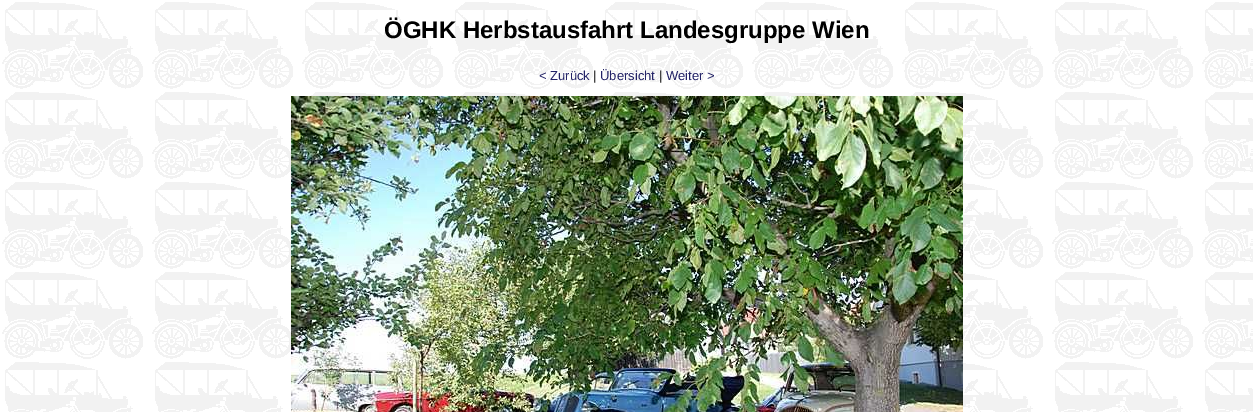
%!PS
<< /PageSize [1253 412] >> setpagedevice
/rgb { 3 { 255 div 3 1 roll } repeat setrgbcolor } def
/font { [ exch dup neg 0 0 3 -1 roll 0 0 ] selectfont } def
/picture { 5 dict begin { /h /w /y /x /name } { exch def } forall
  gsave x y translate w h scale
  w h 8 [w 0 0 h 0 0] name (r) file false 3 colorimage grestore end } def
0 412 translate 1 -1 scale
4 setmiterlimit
255 255 255 rgb
0 0 1253 412 rectfill
(img/1.rgb) 2 2 1251 410 picture
(img/2.rgb) 291 96 672 316 picture
/LiberationSans-Bold 24 font
0 0 0 rgb
384 38 moveto (ÖGHK Herbstausfahrt Landesgruppe Wien) show
/LiberationSans-Regular 13 font
34 34 102 rgb
539 80 moveto (< Zurück) show
0 0 0 rgb
593 80 moveto (|) show
34 34 102 rgb
600 80 moveto (Übersicht) show
0 0 0 rgb
659 80 moveto (|) show
34 34 102 rgb
666 80 moveto (Weiter >) show
showpage
